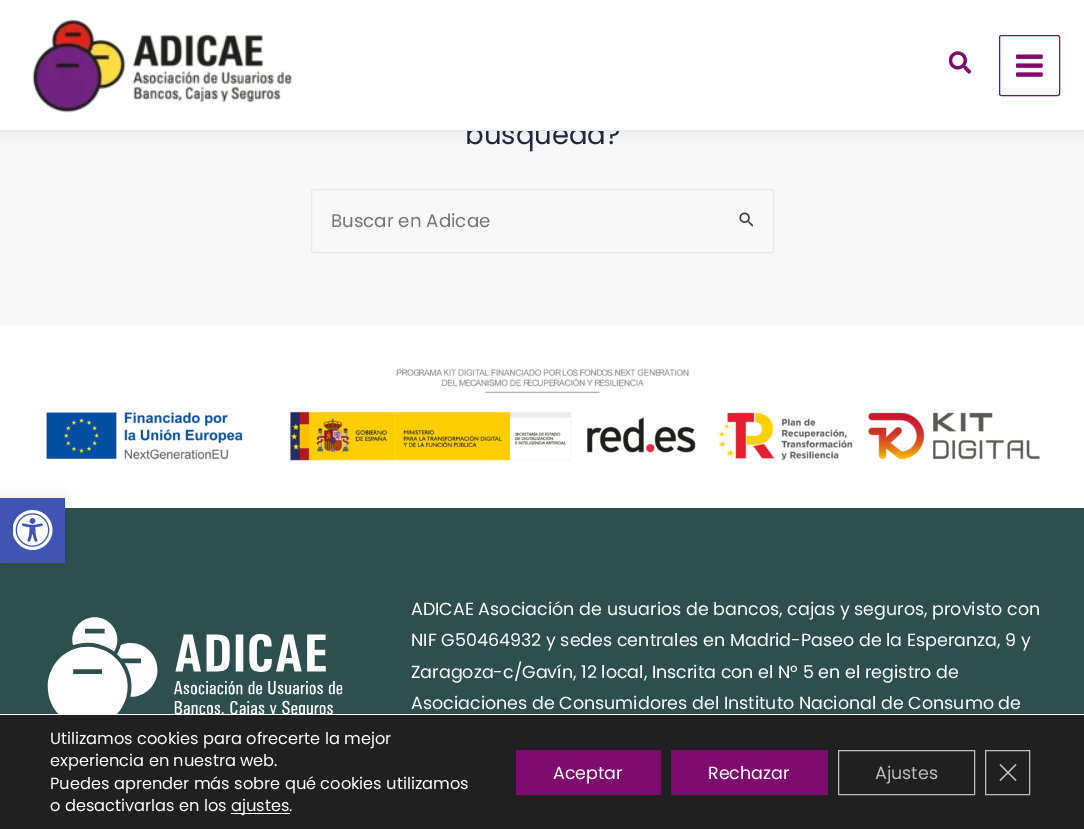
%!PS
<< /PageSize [1084 829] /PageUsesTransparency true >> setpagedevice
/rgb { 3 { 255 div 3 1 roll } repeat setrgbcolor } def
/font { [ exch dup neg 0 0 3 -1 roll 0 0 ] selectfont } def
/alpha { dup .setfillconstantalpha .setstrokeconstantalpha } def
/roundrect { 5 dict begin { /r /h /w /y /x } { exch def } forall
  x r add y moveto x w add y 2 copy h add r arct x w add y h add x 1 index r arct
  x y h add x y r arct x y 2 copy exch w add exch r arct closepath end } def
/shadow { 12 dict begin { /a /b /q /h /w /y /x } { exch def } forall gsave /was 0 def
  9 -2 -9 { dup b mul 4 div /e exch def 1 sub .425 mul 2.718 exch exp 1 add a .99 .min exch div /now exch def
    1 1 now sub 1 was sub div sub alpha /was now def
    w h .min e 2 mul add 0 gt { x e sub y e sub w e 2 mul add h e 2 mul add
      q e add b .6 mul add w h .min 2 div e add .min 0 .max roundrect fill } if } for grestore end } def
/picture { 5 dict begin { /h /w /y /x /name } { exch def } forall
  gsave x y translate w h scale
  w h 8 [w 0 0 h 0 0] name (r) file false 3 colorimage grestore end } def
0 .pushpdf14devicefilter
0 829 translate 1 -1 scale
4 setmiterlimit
248 248 248 rgb
0 0 1084 829 rectfill
255 255 255 rgb
0 325 1084 183 rectfill
47 79 79 rgb
0 508 1084 206 rectfill
0 0 0 rgb
0 498 65 65 0 6 0.1 shadow
64 84 178 rgb
0 498 65 65 rectfill
(img/1.rgb) 13 510 40 40 picture
36 50 66 rgb
0 3 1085 131 0 6 0.07 shadow
226 232 240 rgb
311.5 189.5 462 63 2 roundrect stroke
(img/5.rgb) 739 212 14 15 picture
(img/6.rgb) 46 369 994 92 picture
(img/7.rgb) 47 617 296 97 picture
[
  [0 715 1084 114 32 32 32]
  [0 714 1084 1 255 255 255]
  [231 813 59 1 255 255 255]
  [516 750 145 45 126 12 110]
  [671 750 157 45 126 12 110]
] { aload pop rgb rectfill } forall
188 188 188 rgb
838.5 750.5 136 44 rectstroke
985.5 750.5 44 44 rectstroke
1015.5 764 moveto 1016.5 765 lineto 1000.5 781 lineto 999.5 780 lineto closepath fill
999.5 765 moveto 1000.5 764 lineto 1016.5 780 lineto 1015.5 781 lineto closepath fill
/Poppins-Regular 27.5 font
30 41 59 rgb
465 144 moveto (búsqueda?) show
255 255 255 rgb
0 0 1084 130 rectfill
(img/3.rgb) 949 51 22 23 picture
126 12 110 rgb
999.5 35.5 60 60 2 roundrect stroke
(img/4.rgb) 1016 54 27 23 picture
(img/2.rgb) 32 19 260 94 picture
226 232 240 rgb
0 130 1084 1 rectfill
/Poppins-Regular 18.25 font
117 117 117 rgb
331 227 moveto (Buscar en Adicae) show
/Poppins-Regular 17.5 font
255 255 255 rgb
[
  [(ADICAE Asociación de usuarios de bancos, cajas y seguros, provisto con) 411 615]
  [(NIF G50464932 y sedes centrales en Madrid-Paseo de la Esperanza, 9 y) 411 646]
  [(Zaragoza-c/Gavín, 12 local, Inscrita con el Nº 5 en el registro de) 411 678]
  [(Asociaciones de Consumidores del Instituto Nacional de Consumo de) 411 709]
] { aload pop moveto show } forall
/Poppins-Regular 16.25 font
[
  [(Utilizamos cookies para ofrecerte la mejor) 50 744]
  [(experiencia en nuestra web.) 50 766]
  [(Puedes aprender más sobre qué cookies utilizamos) 50 789]
  [(o desactivarlas en los) 50 811]
  [(ajustes.) 231 811]
] { aload pop moveto show } forall
/Poppins-Regular 17.5 font
553 779 moveto (Aceptar) show
708 779 moveto (Rechazar) show
188 188 188 rgb
875 779 moveto (Ajustes) show
.poppdf14devicefilter showpage
